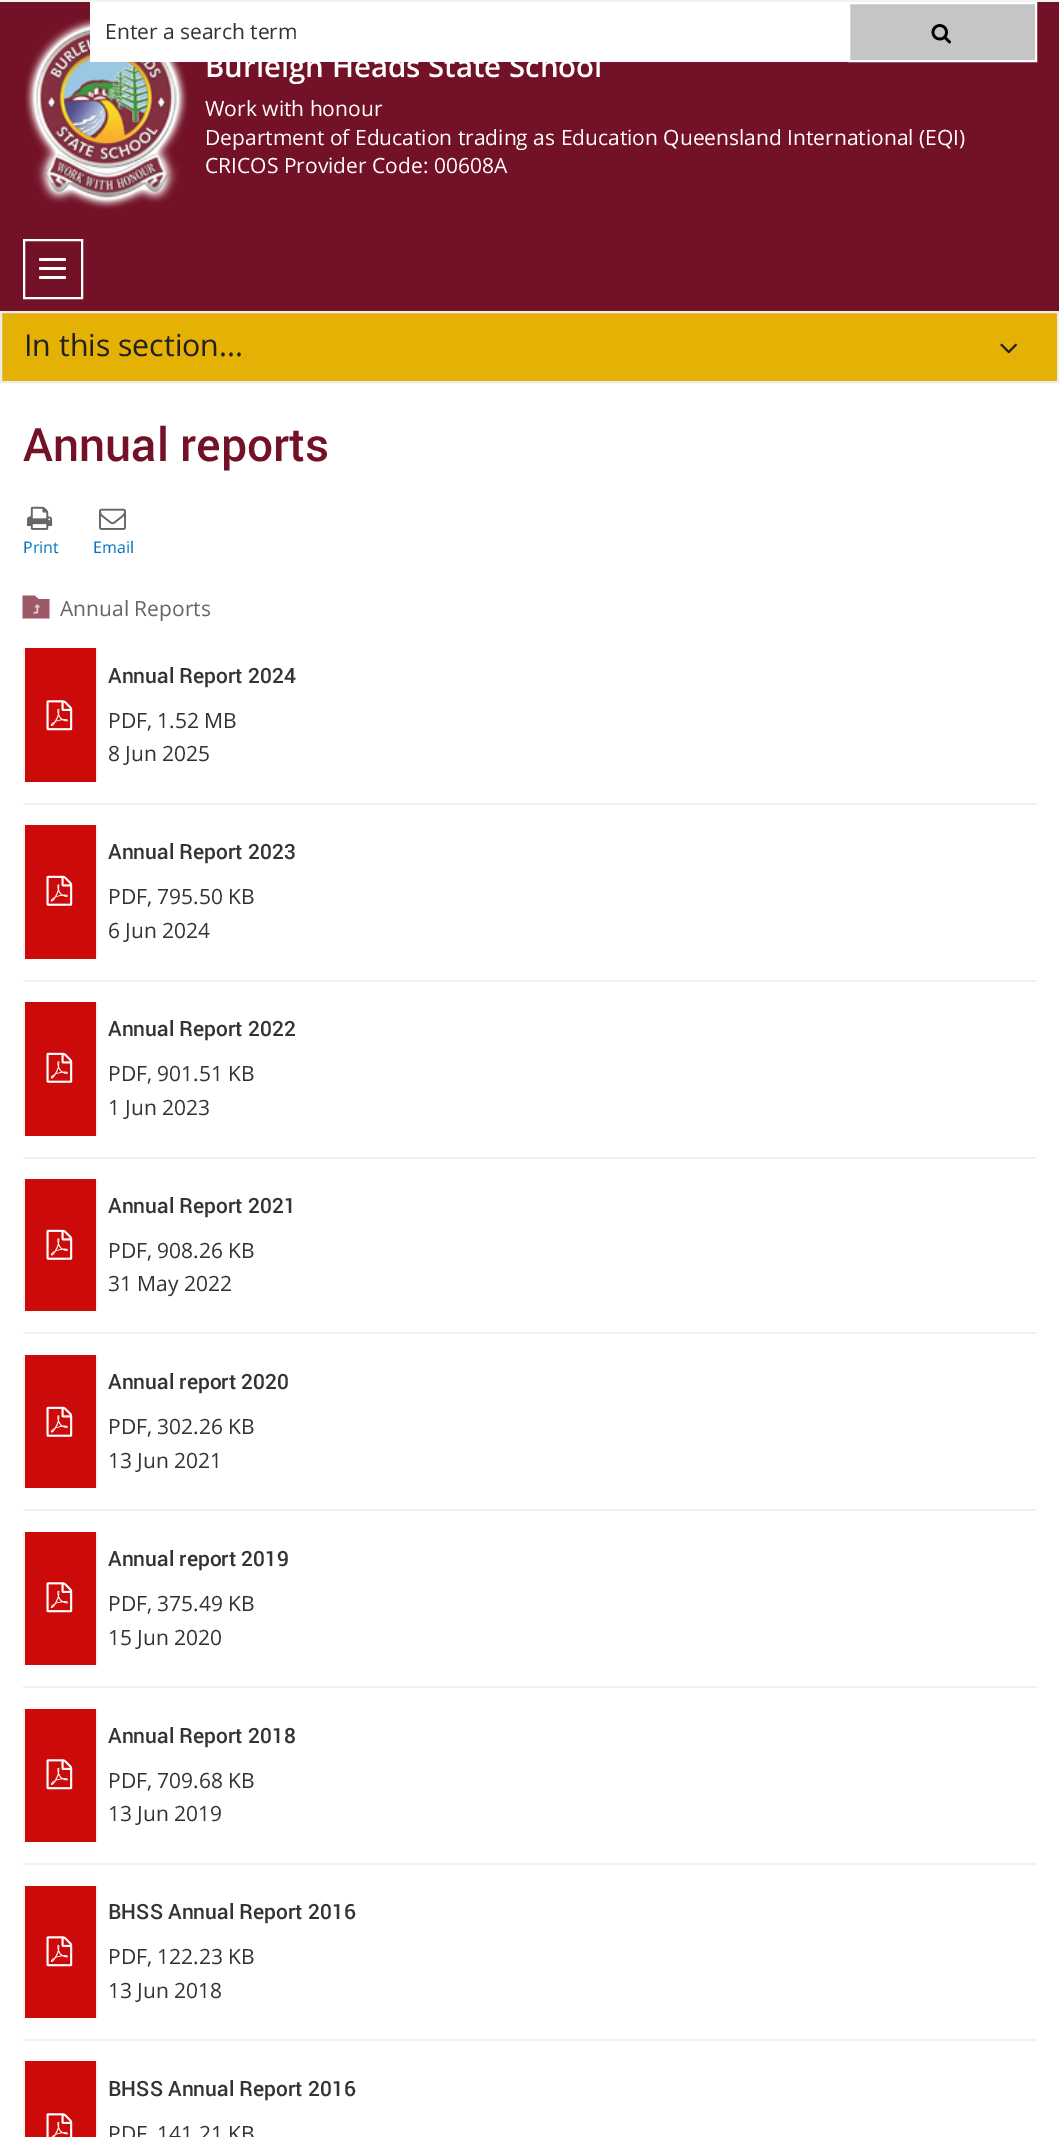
%!PS
<< /PageSize [1059 2137] >> setpagedevice
/rgb { 3 { 255 div 3 1 roll } repeat setrgbcolor } def
/font { [ exch dup neg 0 0 3 -1 roll 0 0 ] selectfont } def
/roundrect { 5 dict begin { /r /h /w /y /x } { exch def } forall
  x r add y moveto x w add y 2 copy h add r arct x w add y h add x 1 index r arct
  x y h add x y r arct x y 2 copy exch w add exch r arct closepath end } def
/picture { 5 dict begin { /h /w /y /x /name } { exch def } forall
  gsave x y translate w h scale
  w h 8 [w 0 0 h 0 0] name (r) file false 3 colorimage grestore end } def
0 2137 translate 1 -1 scale
4 setmiterlimit
255 255 255 rgb
0 0 1059 2137 rectfill
243 243 243 rgb
0 0 1059 2 rectfill
115 18 38 rgb
0 2 1059 309 rectfill
(img/2.rgb) 25 18 163 191 picture
255 255 255 rgb
90 2 758 60 rectfill
197 197 197 rgb
849 3 moveto 1036 3 lineto 1036 61 lineto 849 61 lineto closepath gsave fill grestore
255 255 255 rgb
2 setlinewidth
stroke
(img/1.rgb) 931 24 20 20 picture
24 240 58 58 rectstroke
39 258 27 3 1.5 roundrect fill
39 267 27 3 1.5 roundrect fill
39 276 27 3 1.5 roundrect fill
229 177 5 rgb
1 312 moveto 1058 312 lineto 1058 382 lineto 1 382 lineto closepath gsave fill grestore
236 236 236 rgb
stroke
(img/3.rgb) 1000 343 18 11 picture
(img/4.rgb) 27 506 26 24 picture
(img/5.rgb) 99 508 27 22 picture
157 89 103 rgb
38.5 599 moveto 34.5 595.5 lineto 22.5 595.5 lineto 22.5 618.5 lineto 49.5 618.5 lineto 49.5 599 lineto closepath fill
(img/6.rgb) 33 604 7 10 picture
[
  [23 803 1014 2 241 241 241]
  [25 648 71 134 204 10 10]
  [96 648 2 134 241 241 241]
  [23 648 2 134 241 241 241]
] { aload pop rgb rectfill } forall
(img/7.rgb) 46 700 27 31 picture
[
  [23 980 1014 2 241 241 241]
  [25 825 71 134 204 10 10]
  [96 825 2 134 241 241 241]
  [23 825 2 134 241 241 241]
] { aload pop rgb rectfill } forall
(img/8.rgb) 46 875 27 31 picture
[
  [23 1157 1014 2 241 241 241]
  [25 1002 71 134 204 10 10]
  [96 1002 2 134 241 241 241]
  [23 1002 2 134 241 241 241]
] { aload pop rgb rectfill } forall
(img/8.rgb) 46 1052 27 31 picture
[
  [23 1332 1014 2 241 241 241]
  [25 1179 71 132 204 10 10]
  [96 1179 2 132 241 241 241]
  [23 1179 2 132 241 241 241]
] { aload pop rgb rectfill } forall
(img/8.rgb) 46 1229 27 31 picture
[
  [23 1509 1014 2 241 241 241]
  [25 1355 71 133 204 10 10]
  [96 1355 2 133 241 241 241]
  [23 1355 2 133 241 241 241]
] { aload pop rgb rectfill } forall
(img/8.rgb) 46 1406 27 31 picture
[
  [23 1686 1014 2 241 241 241]
  [25 1532 71 133 204 10 10]
  [96 1532 2 133 241 241 241]
  [23 1532 2 133 241 241 241]
] { aload pop rgb rectfill } forall
(img/7.rgb) 46 1582 27 31 picture
[
  [23 1863 1014 2 241 241 241]
  [25 1709 71 133 204 10 10]
  [96 1709 2 133 241 241 241]
  [23 1709 2 133 241 241 241]
] { aload pop rgb rectfill } forall
(img/7.rgb) 46 1759 27 31 picture
[
  [23 2039 1014 2 241 241 241]
  [25 1886 71 132 204 10 10]
  [96 1886 2 132 241 241 241]
  [23 1886 2 132 241 241 241]
] { aload pop rgb rectfill } forall
(img/7.rgb) 46 1936 27 31 picture
[
  [25 2061 71 76 204 10 10]
  [96 2061 2 76 241 241 241]
  [23 2061 2 76 241 241 241]
] { aload pop rgb rectfill } forall
(img/9.rgb) 46 2113 27 24 picture
/OpenSans-Regular 21 font
51 51 51 rgb
105 39 moveto (Enter a search term) show
/OpenSans-SemiBold 29.4 font
255 255 255 rgb
205 77 moveto (Burleigh Heads State School) show
/OpenSans-Regular 21 font
[
  [(Work with honour) 205 116]
  [(Department of Education trading as Education Queensland International \(EQI\)) 205 145]
  [(CRICOS Provider Code: 00608A) 205 173]
] { aload pop moveto show } forall
/OpenSans-Regular 30.25 font
33 33 33 rgb
24 356 moveto (In this section...) show
/Roboto-Medium 46.25 font
115 18 38 rgb
23 461 moveto (Annual reports) show
/OpenSans-Regular 16 font
0 114 198 rgb
23 553 moveto (Print) show
93 553 moveto (Email) show
/OpenSans-Regular 21 font
102 102 102 rgb
60 616 moveto (Annual Reports) show
/Roboto-Medium 21 font
51 51 51 rgb
108 683 moveto (Annual Report 2024) show
/OpenSans-Regular 21 font
108 728 moveto (PDF, 1.52 MB) show
108 761 moveto (8 Jun 2025) show
/Roboto-Medium 21 font
108 859 moveto (Annual Report 2023) show
/OpenSans-Regular 21 font
108 904 moveto (PDF, 795.50 KB) show
108 938 moveto (6 Jun 2024) show
/Roboto-Medium 21 font
108 1036 moveto (Annual Report 2022) show
/OpenSans-Regular 21 font
108 1081 moveto (PDF, 901.51 KB) show
108 1115 moveto (1 Jun 2023) show
/Roboto-Medium 21 font
108 1213 moveto (Annual Report 2021) show
/OpenSans-Regular 21 font
108 1258 moveto (PDF, 908.26 KB) show
108 1291 moveto (31 May 2022) show
/Roboto-Medium 21 font
108 1389 moveto (Annual report 2020) show
/OpenSans-Regular 21 font
108 1434 moveto (PDF, 302.26 KB) show
108 1468 moveto (13 Jun 2021) show
/Roboto-Medium 21 font
108 1566 moveto (Annual report 2019) show
/OpenSans-Regular 21 font
108 1611 moveto (PDF, 375.49 KB) show
108 1645 moveto (15 Jun 2020) show
/Roboto-Medium 21 font
108 1743 moveto (Annual Report 2018) show
/OpenSans-Regular 21 font
108 1788 moveto (PDF, 709.68 KB) show
108 1821 moveto (13 Jun 2019) show
/Roboto-Medium 21 font
108 1919 moveto (BHSS Annual Report 2016) show
/OpenSans-Regular 21 font
108 1964 moveto (PDF, 122.23 KB) show
108 1998 moveto (13 Jun 2018) show
/Roboto-Medium 21 font
108 2096 moveto (BHSS Annual Report 2016) show
/OpenSans-Regular 21 font
108 2141 moveto (PDF) show
157 2141 moveto (141.21 KB) show
showpage
